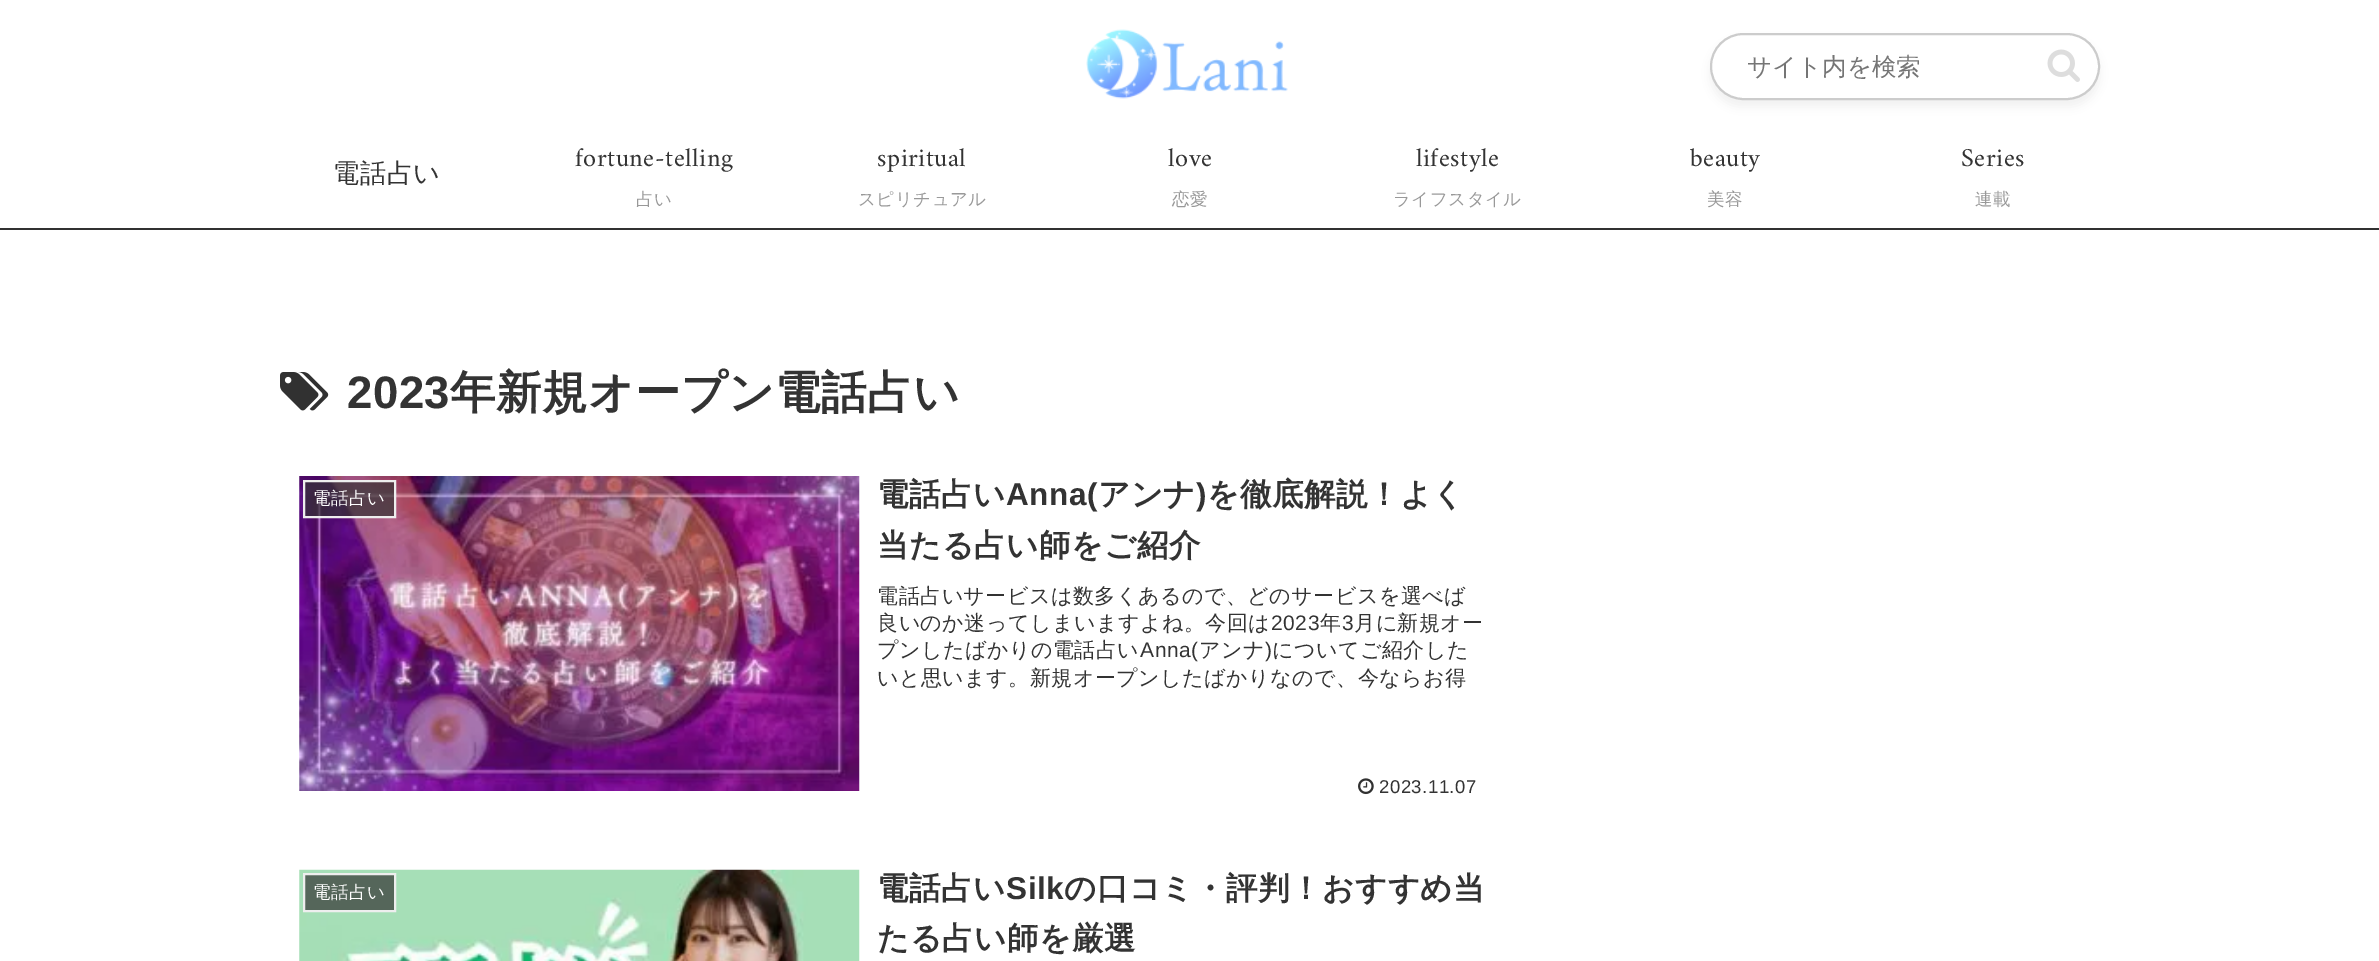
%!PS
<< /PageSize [2379 961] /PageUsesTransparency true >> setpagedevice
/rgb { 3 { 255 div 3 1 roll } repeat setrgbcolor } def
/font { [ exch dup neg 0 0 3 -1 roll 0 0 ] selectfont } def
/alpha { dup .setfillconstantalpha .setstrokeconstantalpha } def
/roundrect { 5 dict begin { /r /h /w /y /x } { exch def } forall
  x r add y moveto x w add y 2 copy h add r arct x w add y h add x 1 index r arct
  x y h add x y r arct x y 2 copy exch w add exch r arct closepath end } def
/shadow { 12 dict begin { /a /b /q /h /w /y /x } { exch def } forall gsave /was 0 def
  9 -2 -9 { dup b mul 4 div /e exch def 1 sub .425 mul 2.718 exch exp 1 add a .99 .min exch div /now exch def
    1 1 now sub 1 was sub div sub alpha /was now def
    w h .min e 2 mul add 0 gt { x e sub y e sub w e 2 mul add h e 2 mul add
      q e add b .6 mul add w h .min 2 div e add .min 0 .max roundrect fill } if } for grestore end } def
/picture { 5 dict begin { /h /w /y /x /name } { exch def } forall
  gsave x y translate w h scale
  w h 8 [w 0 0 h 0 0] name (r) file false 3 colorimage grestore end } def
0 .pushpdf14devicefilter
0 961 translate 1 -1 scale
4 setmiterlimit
255 255 255 rgb
0 0 2379 961 rectfill
(img/1.rgb) 1086 29 202 70 picture
0 0 0 rgb
1710 40 390 67 33.5 5 0.05 shadow
255 255 255 rgb
1711 34 388 65 32.5 roundrect gsave fill grestore
204 204 204 rgb
2 setlinewidth
stroke
(img/2.rgb) 2047 49 33 33 picture
49 49 49 rgb
0 228 2379 2 rectfill
(img/3.rgb) 280 372 49 39 picture
(img/4.rgb) 299 476 561 315 picture
0.7 alpha
51 51 51 rgb
304 481 moveto 395 481 lineto 395 517 lineto 304 517 lineto closepath fill
1 alpha
238 238 238 rgb
304 481 moveto 395 481 lineto 395 517 lineto 304 517 lineto closepath stroke
(img/5.rgb) 1358 778 16 17 picture
(img/6.rgb) 299 869 561 92 picture
0.7 alpha
51 51 51 rgb
304 874 moveto 395 874 lineto 395 911 lineto 304 911 lineto closepath fill
1 alpha
238 238 238 rgb
304 874 moveto 395 874 lineto 395 911 lineto 304 911 lineto closepath stroke
/WenQuanYiZenHei-Medium 24.5 font
117 117 117 rgb
1747 75 moveto (サイト内を検索) show
/WenQuanYiZenHei-Medium 26.25 font
51 51 51 rgb
333 182 moveto 0.5 0 (電話占い) ashow
/Amiri-Regular 26.25 font
575 166 moveto 0.5 0 (fortune-telling) ashow
/WenQuanYiZenHei-Medium 17.5 font
153 153 153 rgb
636 205 moveto 0.5 0 (占い) ashow
/Amiri-Regular 26.25 font
51 51 51 rgb
877 166 moveto 0.5 0 (spiritual) ashow
/WenQuanYiZenHei-Medium 17.5 font
153 153 153 rgb
858 205 moveto 0.5 0 (スピリチュアル) ashow
/Amiri-Regular 26.25 font
51 51 51 rgb
1168 166 moveto 0.5 0 (love) ashow
/WenQuanYiZenHei-Medium 17.5 font
153 153 153 rgb
1172 205 moveto 0.5 0 (恋愛) ashow
/Amiri-Regular 26.25 font
51 51 51 rgb
1416 166 moveto 0.5 0 (lifestyle) ashow
/WenQuanYiZenHei-Medium 17.5 font
153 153 153 rgb
1393 205 moveto 0.5 0 (ライフスタイル) ashow
/Amiri-Regular 26.25 font
51 51 51 rgb
1690 166 moveto 0.5 0 (beauty) ashow
/WenQuanYiZenHei-Medium 17.5 font
153 153 153 rgb
1707 205 moveto 0.5 0 (美容) ashow
/Amiri-Regular 26.25 font
51 51 51 rgb
1961 166 moveto 0.5 0 (Series) ashow
/WenQuanYiZenHei-Medium 17.5 font
153 153 153 rgb
1975 205 moveto 0.5 0 (連載) ashow
/LiberationSans-Bold 45.5 font
51 51 51 rgb
347 408 moveto 0.5 0 (2023) ashow
/WenQuanYiZenHei-Bold 45.5 font
450 408 moveto 0.5 0 (年新規オープン電話占い) ashow
/WenQuanYiZenHei-Medium 17.5 font
255 255 255 rgb
313 504 moveto 0.5 0 (電話占い) ashow
/WenQuanYiZenHei-Bold 31.5 font
51 51 51 rgb
877 505 moveto 0.5 0 (電話占い) ashow
/LiberationSans-Bold 31.5 font
1006 505 moveto 0.5 0 (Anna\() ashow
/WenQuanYiZenHei-Bold 31.5 font
1098 505 moveto 0.5 0 (アンナ) ashow
/LiberationSans-Bold 31.5 font
1196 505 moveto 0.5 0 (\)) ashow
/WenQuanYiZenHei-Bold 31.5 font
1207 505 moveto 0.5 0 (を徹底解説！よく) ashow
877 556 moveto 0.5 0 (当たる占い師をご紹介) ashow
/WenQuanYiZenHei-Medium 21 font
877 603 moveto 0.5 0 (電話占いサービスは数多くあるので、どのサービスを選べば) ashow
877 630 moveto 0.5 0 (良いのか迷ってしまいますよね。今回は) ashow
/LiberationSans-Regular 21 font
1271 630 moveto 0.5 0 (2023) ashow
/WenQuanYiZenHei-Medium 21 font
1320 630 moveto 0.5 0 (年) ashow
/LiberationSans-Regular 21 font
1342 630 moveto 0.5 0 (3) ashow
/WenQuanYiZenHei-Medium 21 font
1354 630 moveto 0.5 0 (月に新規オー) ashow
877 657 moveto 0.5 0 (プンしたばかりの電話占い) ashow
/LiberationSans-Regular 21 font
1140 657 moveto 0.5 0 (Anna\() ashow
/WenQuanYiZenHei-Medium 21 font
1199 657 moveto 0.5 0 (アンナ) ashow
/LiberationSans-Regular 21 font
1265 657 moveto 0.5 0 (\)) ashow
/WenQuanYiZenHei-Medium 21 font
1272 657 moveto 0.5 0 (についてご紹介した) ashow
877 685 moveto 0.5 0 (いと思います。新規オープンしたばかりなので、今ならお得) ashow
/LiberationSans-Regular 18.5 font
1379 793 moveto 0.5 0 (2023.11.07) ashow
/WenQuanYiZenHei-Medium 17.5 font
255 255 255 rgb
313 898 moveto 0.5 0 (電話占い) ashow
/WenQuanYiZenHei-Bold 31.5 font
51 51 51 rgb
877 899 moveto 0.5 0 (電話占い) ashow
/LiberationSans-Bold 31.5 font
1006 899 moveto 0.5 0 (Silk) ashow
/WenQuanYiZenHei-Bold 31.5 font
1064 899 moveto 0.5 0 (の口コミ・評判！おすすめ当) ashow
877 949 moveto 0.5 0 (たる占い師を厳選) ashow
.poppdf14devicefilter showpage
